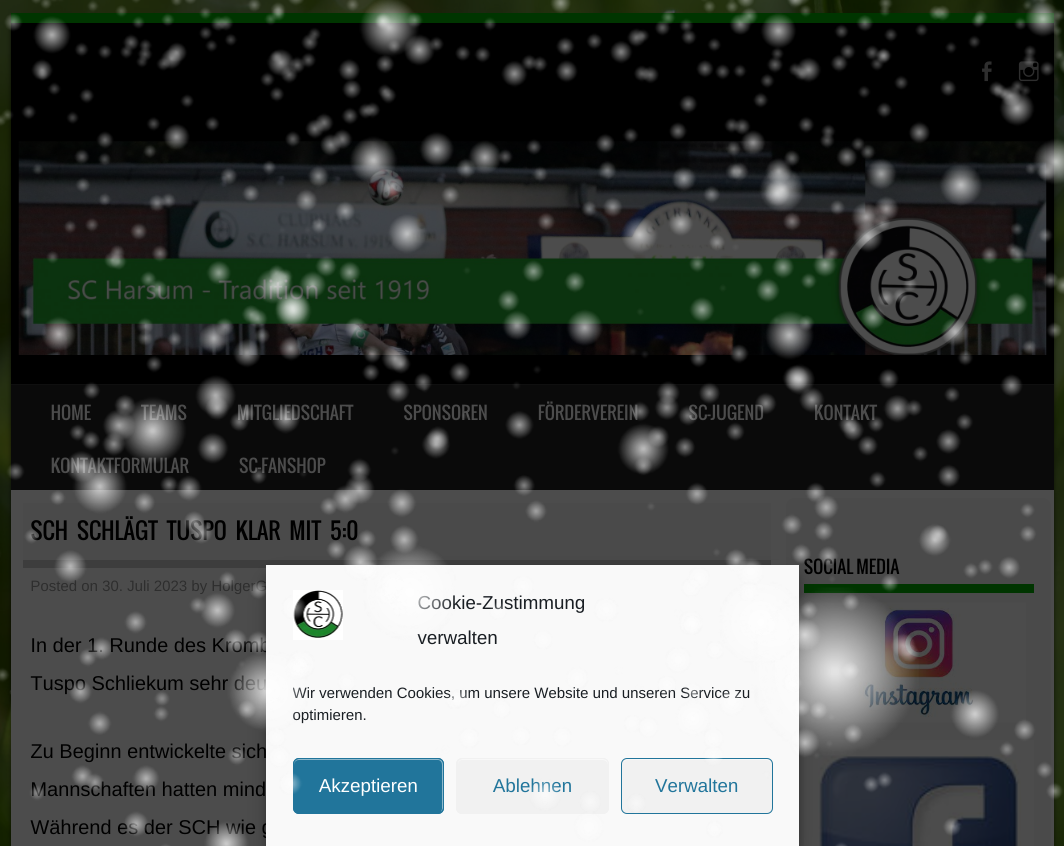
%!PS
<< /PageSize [1064 846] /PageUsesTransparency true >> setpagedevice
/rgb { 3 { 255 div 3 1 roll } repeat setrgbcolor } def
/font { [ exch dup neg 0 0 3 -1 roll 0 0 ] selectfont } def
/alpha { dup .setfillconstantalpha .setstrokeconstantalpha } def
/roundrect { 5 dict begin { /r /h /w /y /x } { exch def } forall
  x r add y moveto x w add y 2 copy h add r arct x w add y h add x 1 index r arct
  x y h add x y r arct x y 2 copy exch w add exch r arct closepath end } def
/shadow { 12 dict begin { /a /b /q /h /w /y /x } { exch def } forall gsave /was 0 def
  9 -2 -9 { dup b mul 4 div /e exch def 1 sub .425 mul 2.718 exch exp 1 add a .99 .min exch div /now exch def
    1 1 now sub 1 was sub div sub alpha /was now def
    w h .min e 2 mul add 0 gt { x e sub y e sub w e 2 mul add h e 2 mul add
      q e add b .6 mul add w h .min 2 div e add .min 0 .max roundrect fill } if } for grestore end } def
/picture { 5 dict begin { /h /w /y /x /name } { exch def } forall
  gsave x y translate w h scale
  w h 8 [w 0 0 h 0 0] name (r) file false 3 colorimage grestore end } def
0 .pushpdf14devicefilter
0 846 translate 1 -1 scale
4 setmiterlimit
255 255 255 rgb
0 0 1064 846 rectfill
(img/1.rgb) 0 0 1064 846 picture
0 0 0 rgb
11 18 1043 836 0 2.5 0.6 shadow
11 23 1043 361 rectfill
0 53 0 rgb
11 13 1043 10 rectfill
(img/3.rgb) 982 61 10 21 picture
(img/4.rgb) 1018 61 21 21 picture
(img/5.rgb) 18 141 1029 214 picture
[
  [11 385 1043 105 10 10 10]
  [11 384 1043 1 15 15 15]
  [11 490 1043 356 77 77 77]
  [23 503 748 57 74 74 74]
  [23 560 748 8 61 61 61]
] { aload pop rgb rectfill } forall
74 74 74 rgb
786 498 265 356 8 roundrect fill
0 53 0 rgb
804 584 230 9 rectfill
(img/6.rgb) 811 602 215 121 picture
(img/7.rgb) 804 740 230 106 picture
0 0 0 rgb
266 573 533 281 0 4 0.23 shadow
266 578 533 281 0 12.5 0.19 shadow
/Oswald-Regular 17.5 font
77 77 77 rgb
[
  [(HOME) 51 420]
  [(TEAMS) 141 420]
  [(MITGLIEDSCHAFT) 237 420]
  [(SPONSOREN) 403 420]
  [(FÖRDERVEREIN) 538 420]
  [(SC-JUGEND) 688 420]
  [(KONTAKT) 814 420]
  [(KONTAKTFORMULAR) 51 473]
  [(SC-FANSHOP) 239 473]
] { aload pop moveto show } forall
/Oswald-Regular 22.5 font
0 0 0 rgb
30 540 moveto 5 0 32 (SCH SCHLÄGT TUSPO KLAR MIT 5:0) widthshow
/LiberationSans-Regular 15 font
46 46 46 rgb
30 591 moveto (Posted on 30. Juli 2023 by HolgerG) show
/LiberationSans-Regular 20 font
0 0 0 rgb
[
  [(In der 1. Runde des Kromb) 30 652]
  [(Tuspo Schliekum sehr deu) 30 690]
  [(Zu Beginn entwickelte sich) 30 758]
  [(Mannschaften hatten mind) 30 796]
  [(Während es der SCH wie) 30 834]
] { aload pop moveto show } forall
/Oswald-Regular 17.5 font
804 574 moveto (SOCIAL MEDIA) show
249 249 249 rgb
266 565 533 281 rectfill
(img/8.rgb) 293 590 50 50 picture
/LiberationSans-Regular 18.75 font
25 30 35 rgb
418 609 moveto (Cookie-Zustimmung) show
418 644 moveto (verwalten) show
/LiberationSans-Regular 15 font
293 698 moveto (Wir verwenden Cookies, um unsere Website und unseren Service zu) show
293 720 moveto (optimieren.) show
33 117 155 rgb
293 758 151 56 6 roundrect fill
144 186 205 rgb
299 760 moveto 438 760 lineto 440 760 442 762 442 765 curveto 442 809 lineto 441 812 lineto 442 811 443 809 443 808 curveto 443 764 lineto 443 761 441 759 438 759 curveto 299 759 lineto 296 759 294 761 294 764 curveto 294 765 lineto 294 762 296 760 299 760 curveto closepath fill
33 117 155 rgb
293.5 758.5 150 55 5.5 roundrect stroke
/LiberationSans-Regular 18.75 font
255 255 255 rgb
319 792 moveto (Akzeptieren) show
241 241 241 rgb
456 758 153 56 6 roundrect fill
248 248 248 rgb
462 760 moveto 602 760 lineto 605 760 608 762 608 765 curveto 608 764 lineto 608 761 606 759 603 759 curveto 463 759 lineto 460 759 458 761 458 764 curveto 458 765 lineto 458 762 460 760 462 760 curveto closepath fill
33 117 155 rgb
493 792 moveto (Ablehnen) show
241 241 241 rgb
621 758 152 56 6 roundrect fill
248 248 248 rgb
628 760 moveto 766 760 lineto 769 760 771 762 771 765 curveto 771 762 769 759 766 759 curveto 627 759 lineto 626 759 624 760 624 762 curveto 625 761 626 760 628 760 curveto closepath fill
33 117 155 rgb
621.5 758.5 151 55 5.5 roundrect stroke
655 792 moveto (Verwalten) show
(img/2.rgb) 0 0 1064 846 picture
.poppdf14devicefilter showpage
